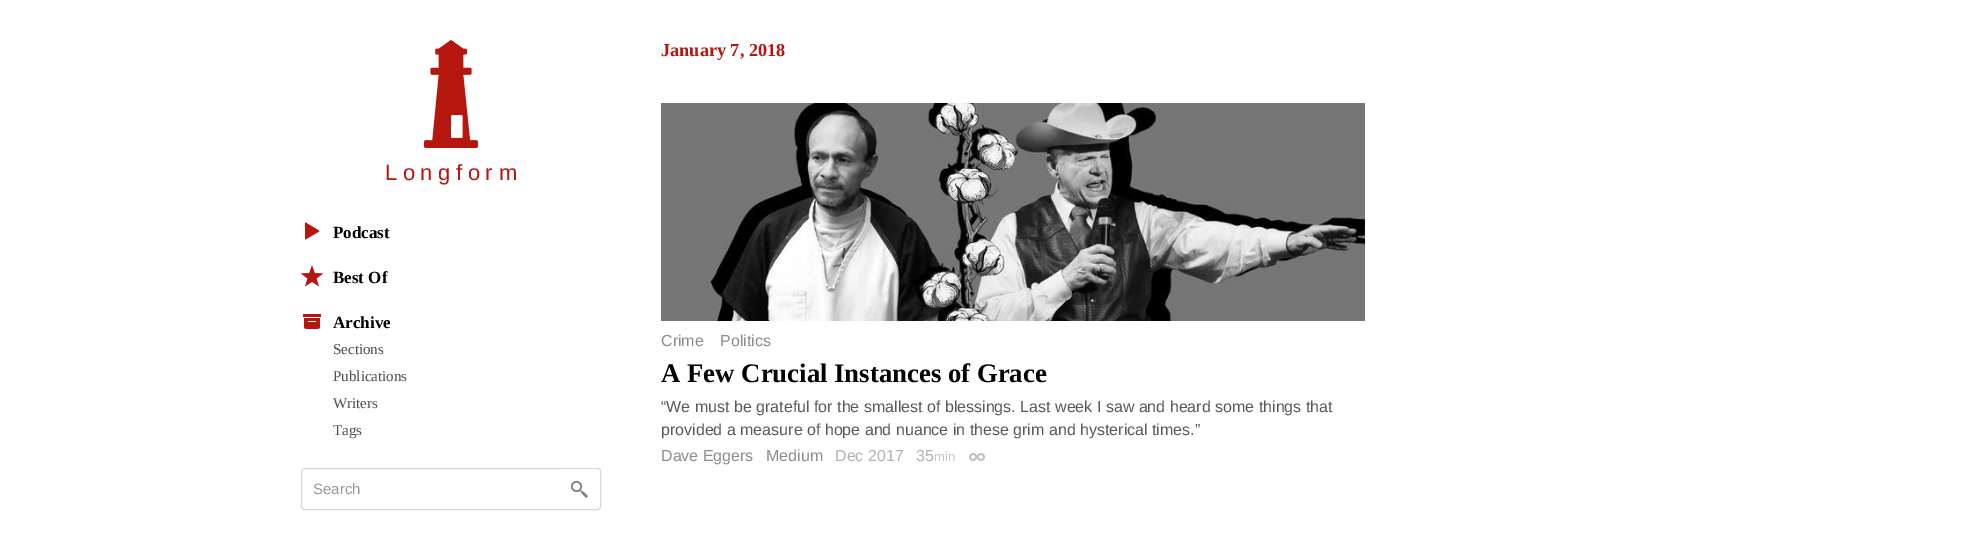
%!PS
<< /PageSize [1962 547] >> setpagedevice
/rgb { 3 { 255 div 3 1 roll } repeat setrgbcolor } def
/font { [ exch dup neg 0 0 3 -1 roll 0 0 ] selectfont } def
/roundrect { 5 dict begin { /r /h /w /y /x } { exch def } forall
  x r add y moveto x w add y 2 copy h add r arct x w add y h add x 1 index r arct
  x y h add x y r arct x y 2 copy exch w add exch r arct closepath end } def
/picture { 5 dict begin { /h /w /y /x /name } { exch def } forall
  gsave x y translate w h scale
  w h 8 [w 0 0 h 0 0] name (r) file false 3 colorimage grestore end } def
0 547 translate 1 -1 scale
4 setmiterlimit
255 255 255 rgb
0 0 1962 547 rectfill
(img/1.rgb) 424 40 54 108 picture
(img/2.rgb) 305 222 15 18 picture
(img/3.rgb) 301 265 22 22 picture
(img/4.rgb) 303 314 18 15 picture
217 217 217 rgb
301.5 468.5 299 41 3.5 roundrect stroke
255 255 255 rgb
560 469 moveto 597 469 lineto 598.5 469 600 470.5 600 472 curveto 600 506 lineto 600 507.5 598.5 509 597 509 curveto 560 509 lineto closepath fill
(img/5.rgb) 570 480 18 18 picture
217 217 217 rgb
560 468 moveto 597 468 lineto 599 468 601 470 601 472 curveto 601 506 lineto 601 508 599 510 597 510 curveto 560 510 lineto closepath 560 469 moveto 597 469 lineto 599 469 600 470 600 472 curveto 600 506 lineto 600 508 599 509 597 509 curveto 560 509 lineto closepath eofill
(img/6.rgb) 661 103 704 218 picture
(img/7.rgb) 969 453 16 8 picture
/LiberationSans-Regular 22 font
181 23 15 rgb
385 180 moveto 5.5 0 (Longfor) ashow
499 180 moveto (m) show
/LiberationSerif-Bold 17 font
0 0 0 rgb
[
  [(Podcast) 333 238]
  [(Best Of) 333 283]
  [(Archive) 333 328]
] { aload pop moveto show } forall
/LiberationSerif-Regular 15 font
77 77 77 rgb
[
  [(Sections) 333 354]
  [(Publications) 333 381]
  [(Writers) 333 408]
  [(Tags) 333 435]
] { aload pop moveto show } forall
/LiberationSans-Regular 15 font
153 153 153 rgb
313 494 moveto (Search) show
/LiberationSerif-Bold 18.25 font
181 23 15 rgb
661 56 moveto (January 7, 2018) show
/LiberationSans-Regular 16 font
140 140 140 rgb
661 346 moveto (Crime) show
720 346 moveto (Politics) show
/LiberationSerif-Bold 26.75 font
0 0 0 rgb
661 382 moveto (A Few Crucial Instances of Grace) show
/LiberationSans-Regular 16 font
89 89 89 rgb
661 412 moveto (“We must be grateful for the smallest of blessings. Last week I saw and heard some things that) show
661 435 moveto (provided a measure of hope and nuance in these grim and hysterical times.”) show
140 140 140 rgb
661 461 moveto (Dave Eggers) show
766 461 moveto (Medium) show
179 179 179 rgb
835 461 moveto (Dec 2017) show
916 461 moveto (35) show
/LiberationSans-Regular 13 font
198 198 198 rgb
934 461 moveto (min) show
showpage
